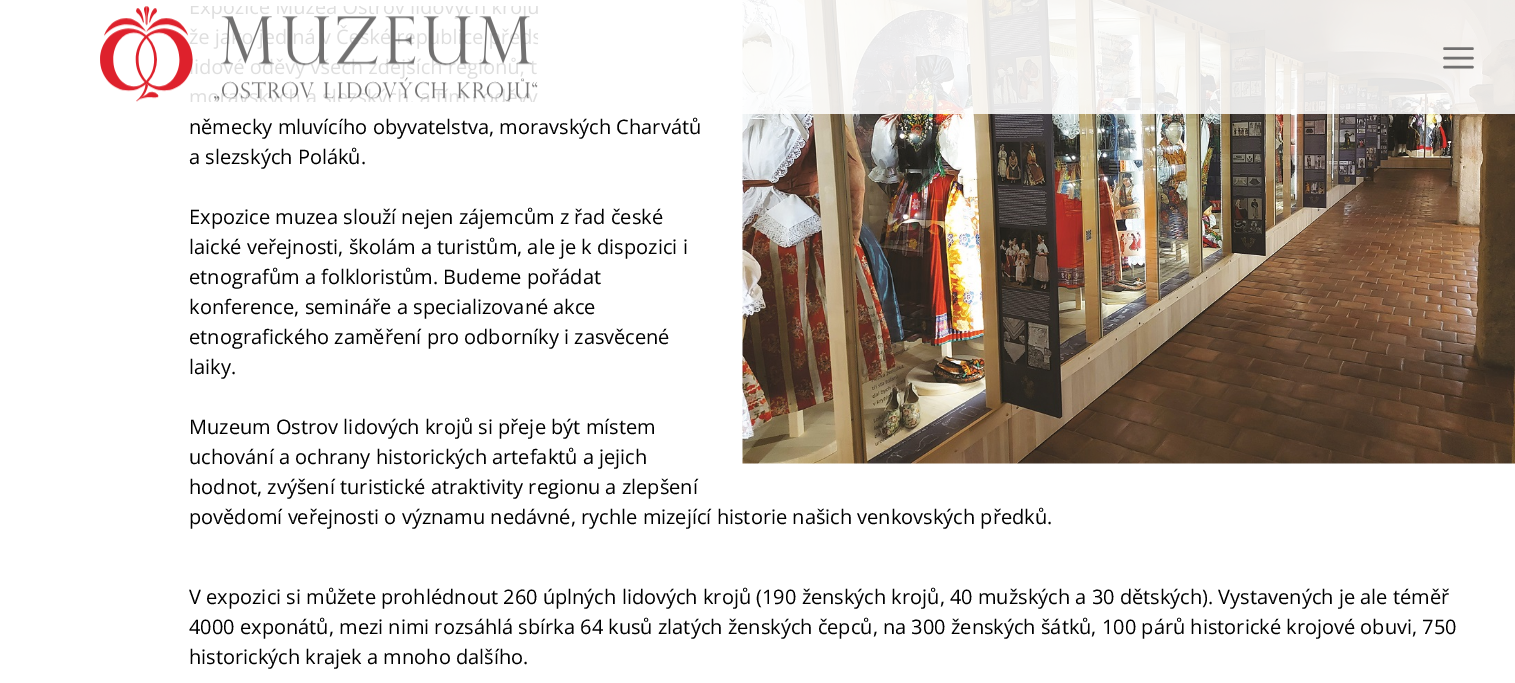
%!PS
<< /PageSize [1515 683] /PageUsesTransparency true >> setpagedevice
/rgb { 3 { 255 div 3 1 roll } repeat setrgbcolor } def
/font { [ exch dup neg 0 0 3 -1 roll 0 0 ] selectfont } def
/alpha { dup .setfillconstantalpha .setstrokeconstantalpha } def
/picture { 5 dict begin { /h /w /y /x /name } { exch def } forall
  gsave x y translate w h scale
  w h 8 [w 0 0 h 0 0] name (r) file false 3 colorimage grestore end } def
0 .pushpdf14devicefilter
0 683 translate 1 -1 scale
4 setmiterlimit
255 255 255 rgb
0 0 1515 683 rectfill
(img/2.rgb) 742 0 773 464 picture
0.87 alpha
742 0 773 114 rectfill
1 alpha
(img/1.rgb) 100 6 438 96 picture
0.87 alpha
93 92 92 rgb
2.5 setlinewidth
1 setlinecap
1 setlinejoin
1444.5 58 moveto 1472.5 58 lineto 1444.5 48.5 moveto 1472.5 48.5 lineto 1444.5 67 moveto 1472.5 67 lineto stroke
/OpenSans-Regular 20 font
1 alpha
0 0 0 rgb
[
  [(německy mluvícího obyvatelstva, moravských Charvátů) 189 134]
  [(a slezských Poláků.) 189 164]
  [(Expozice muzea slouží nejen zájemcům z řad české) 189 224]
  [(laické veřejnosti, školám a turistům, ale je k dispozici i) 189 254]
  [(etnografům a folkloristům. Budeme pořádat) 189 284]
  [(konference, semináře a specializované akce) 189 314]
  [(etnografického zaměření pro odborníky i zasvěcené) 189 344]
  [(laiky.) 189 374]
  [(Muzeum Ostrov lidových krojů si přeje být místem) 189 434]
  [(uchování a ochrany historických artefaktů a jejich) 189 464]
  [(hodnot, zvýšení turistické atraktivity regionu a zlepšení) 189 494]
  [(povědomí veřejnosti o významu nedávné, rychle mizející historie našich venkovských předků.) 189 524]
  [(V expozici si můžete prohlédnout 260 úplných lidových krojů \(190 ženských krojů, 40 mužských a 30 dětských\). Vystavených je ale téměř) 189 604]
  [(4000 exponátů, mezi nimi rozsáhlá sbírka 64 kusů zlatých ženských čepců, na 300 ženských šátků, 100 párů historické krojové obuvi, 750) 189 634]
  [(historických krajek a mnoho dalšího.) 189 664]
] { aload pop moveto show } forall
.poppdf14devicefilter showpage
